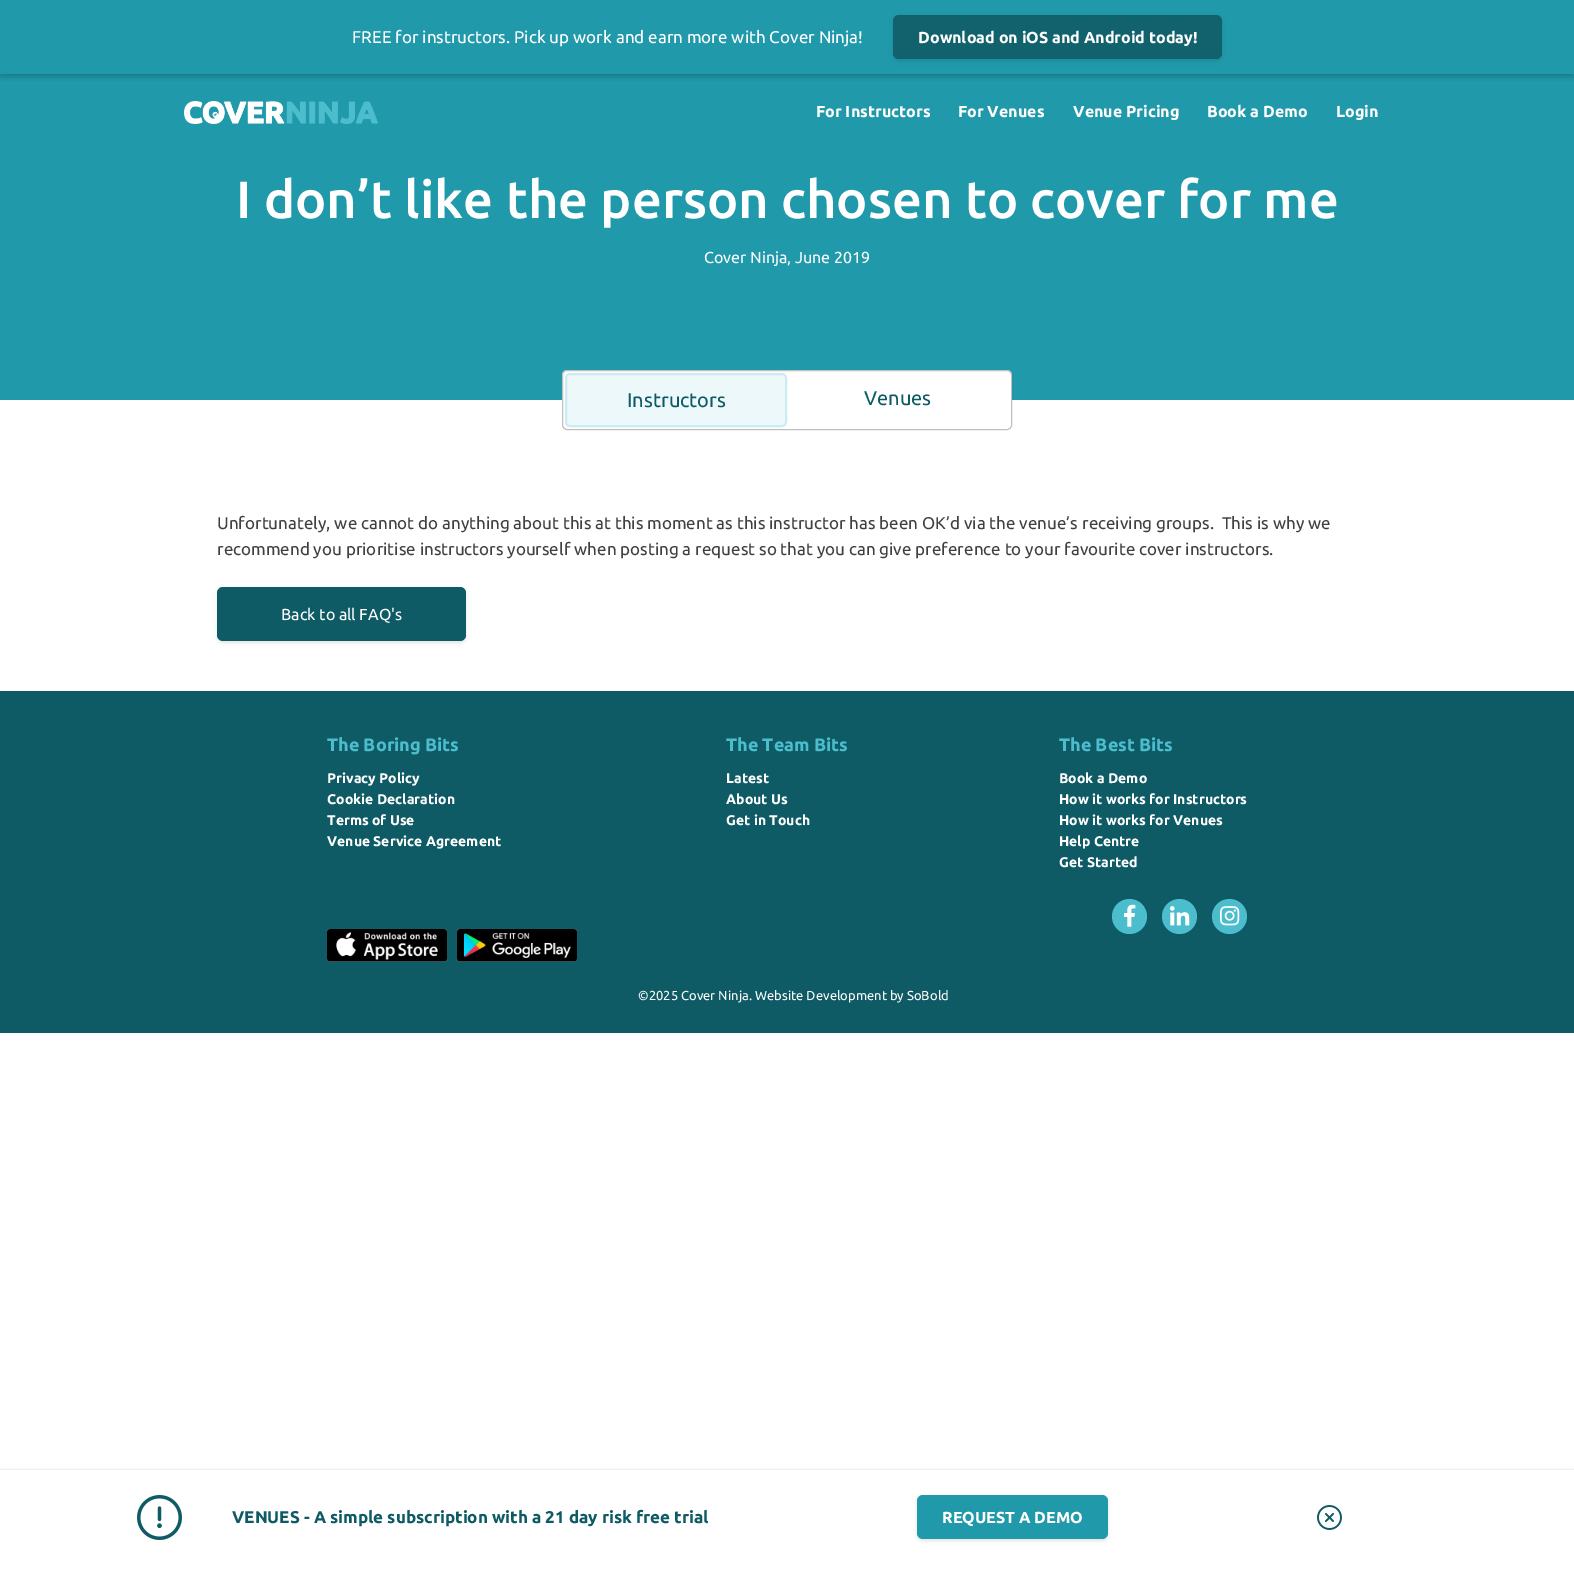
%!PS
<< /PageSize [1574 1569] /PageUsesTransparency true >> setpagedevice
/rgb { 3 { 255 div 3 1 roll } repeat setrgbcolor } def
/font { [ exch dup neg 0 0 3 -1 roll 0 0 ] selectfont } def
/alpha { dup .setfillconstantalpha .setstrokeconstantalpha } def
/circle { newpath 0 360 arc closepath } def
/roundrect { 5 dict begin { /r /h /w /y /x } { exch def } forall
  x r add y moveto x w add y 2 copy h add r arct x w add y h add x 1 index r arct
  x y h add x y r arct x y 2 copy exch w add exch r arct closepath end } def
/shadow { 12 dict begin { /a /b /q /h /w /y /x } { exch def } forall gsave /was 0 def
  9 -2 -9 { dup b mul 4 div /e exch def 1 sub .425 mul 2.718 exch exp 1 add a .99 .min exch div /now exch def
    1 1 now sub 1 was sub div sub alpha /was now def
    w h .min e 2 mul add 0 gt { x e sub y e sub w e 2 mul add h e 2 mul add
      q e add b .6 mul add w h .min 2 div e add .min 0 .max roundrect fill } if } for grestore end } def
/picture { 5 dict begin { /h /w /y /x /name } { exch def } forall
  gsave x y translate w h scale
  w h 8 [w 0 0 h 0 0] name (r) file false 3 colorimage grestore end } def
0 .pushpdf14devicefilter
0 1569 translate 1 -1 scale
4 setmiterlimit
255 255 255 rgb
0 0 1574 1569 rectfill
32 153 170 rgb
0 0 1574 400 rectfill
gsave
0 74 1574 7 rectclip
0 0 0 rgb
0 3 1574 74 0 3 0.2 shadow
grestore
gsave
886 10 moveto 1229 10 lineto 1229 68 lineto 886 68 lineto closepath 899 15 moveto 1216 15 lineto 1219.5 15 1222 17.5 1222 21 curveto 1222 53 lineto 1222 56.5 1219.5 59 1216 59 curveto 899 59 lineto 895.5 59 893 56.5 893 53 curveto 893 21 lineto 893 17.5 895.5 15 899 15 curveto closepath eoclip newpath
0 0 0 rgb
893 17 329 44 6 2 0.11 shadow
grestore
0.6 alpha
9 62 70 rgb
893 15 329 44 6 roundrect fill
1 alpha
(img/1.rgb) 184 101 194 23 picture
255 255 255 rgb
562 370 450 60 5 roundrect fill
0.44 alpha
112 112 112 rgb
562.5 370.5 449 59 4.5 roundrect stroke
1 alpha
237 248 250 rgb
566 374 220 52 4 roundrect gsave fill grestore
204 236 241 rgb
2 setlinewidth
stroke
0 0 0 rgb
217 589 249 54 6 2 0.11 shadow
14 90 101 rgb
217 587 249 54 6 roundrect fill
0 691 1574 342 rectfill
76 189 205 rgb
1129.5 916.5 17.5 circle fill
(img/2.rgb) 1124 904 12 23 picture
1179.5 916.5 17.5 circle fill
(img/3.rgb) 1170 906 20 20 picture
1229.5 916.5 17.5 circle fill
(img/4.rgb) 1220 906 20 20 picture
(img/5.rgb) 327 929 120 33 picture
(img/6.rgb) 457 929 120 33 picture
gsave
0 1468 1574 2 rectclip
0 0 0 rgb
0 1473 1574 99 0 3 0.4 shadow
grestore
(img/7.rgb) 137 1495 45 45 picture
0 0 0 rgb
917 1497 191 44 6 2 0.11 shadow
32 153 170 rgb
917 1495 191 44 6 roundrect fill
(img/8.rgb) 1317 1505 25 25 picture
/Ubuntu-Regular 17 font
255 255 255 rgb
352 43 moveto (FREE for instructors. Pick up work and earn more with Cover Ninja!) show
/Ubuntu-Bold 16 font
[
  [(Download on iOS and Android today!) 918 43]
  [(For Instructors) 816 117]
  [(For Venues) 958 117]
  [(Venue Pricing) 1073 117]
  [(Book a Demo) 1207 117]
  [(Login) 1336 117]
] { aload pop moveto show } forall
/Ubuntu-Medium 52.5 font
236 218 moveto (I don’t like the person chosen to cover for me) show
/Ubuntu-Regular 16 font
704 263 moveto (Cover Ninja, June 2019) show
/Ubuntu-Regular 20 font
14 90 101 rgb
627 407 moveto (Instructors) show
864 405 moveto (Venues) show
/Ubuntu-Regular 17 font
64 64 64 rgb
217 529 moveto (Unfortunately, we cannot do anything about this at this moment as this instructor has been OK’d via the venue’s receiving groups.  This is why we) show
217 555 moveto (recommend you prioritise instructors yourself when posting a request so that you can give preference to your favourite cover instructors.) show
/Ubuntu-Regular 16 font
255 255 255 rgb
281 620 moveto (Back to all FAQ's) show
/Ubuntu-Bold 18 font
76 189 205 rgb
327 751 moveto (The Boring Bits) show
/Ubuntu-Bold 14 font
255 255 255 rgb
[
  [(Privacy Policy) 327 783]
  [(Cookie Declaration) 327 804]
  [(Terms of Use) 327 825]
  [(Venue Service Agreement) 327 846]
] { aload pop moveto show } forall
/Ubuntu-Bold 18 font
76 189 205 rgb
726 751 moveto (The Team Bits) show
/Ubuntu-Bold 14 font
255 255 255 rgb
[
  [(Latest) 726 783]
  [(About Us) 726 804]
  [(Get in Touch) 726 825]
] { aload pop moveto show } forall
/Ubuntu-Bold 18 font
76 189 205 rgb
1059 751 moveto (The Best Bits) show
/Ubuntu-Bold 14 font
255 255 255 rgb
[
  [(Book a Demo) 1059 783]
  [(How it works for Instructors) 1059 804]
  [(How it works for Venues) 1059 825]
  [(Help Centre) 1059 846]
  [(Get Started) 1059 867]
] { aload pop moveto show } forall
/Ubuntu-Regular 13 font
638 1000 moveto (©2025 Cover Ninja. Website Development by SoBold) show
/Ubuntu-Bold 17 font
14 90 101 rgb
232 1523 moveto (VENUES - A simple subscription with a 21 day risk free trial) show
/Ubuntu-Bold 16 font
255 255 255 rgb
942 1523 moveto (REQUEST A DEMO) show
.poppdf14devicefilter showpage
